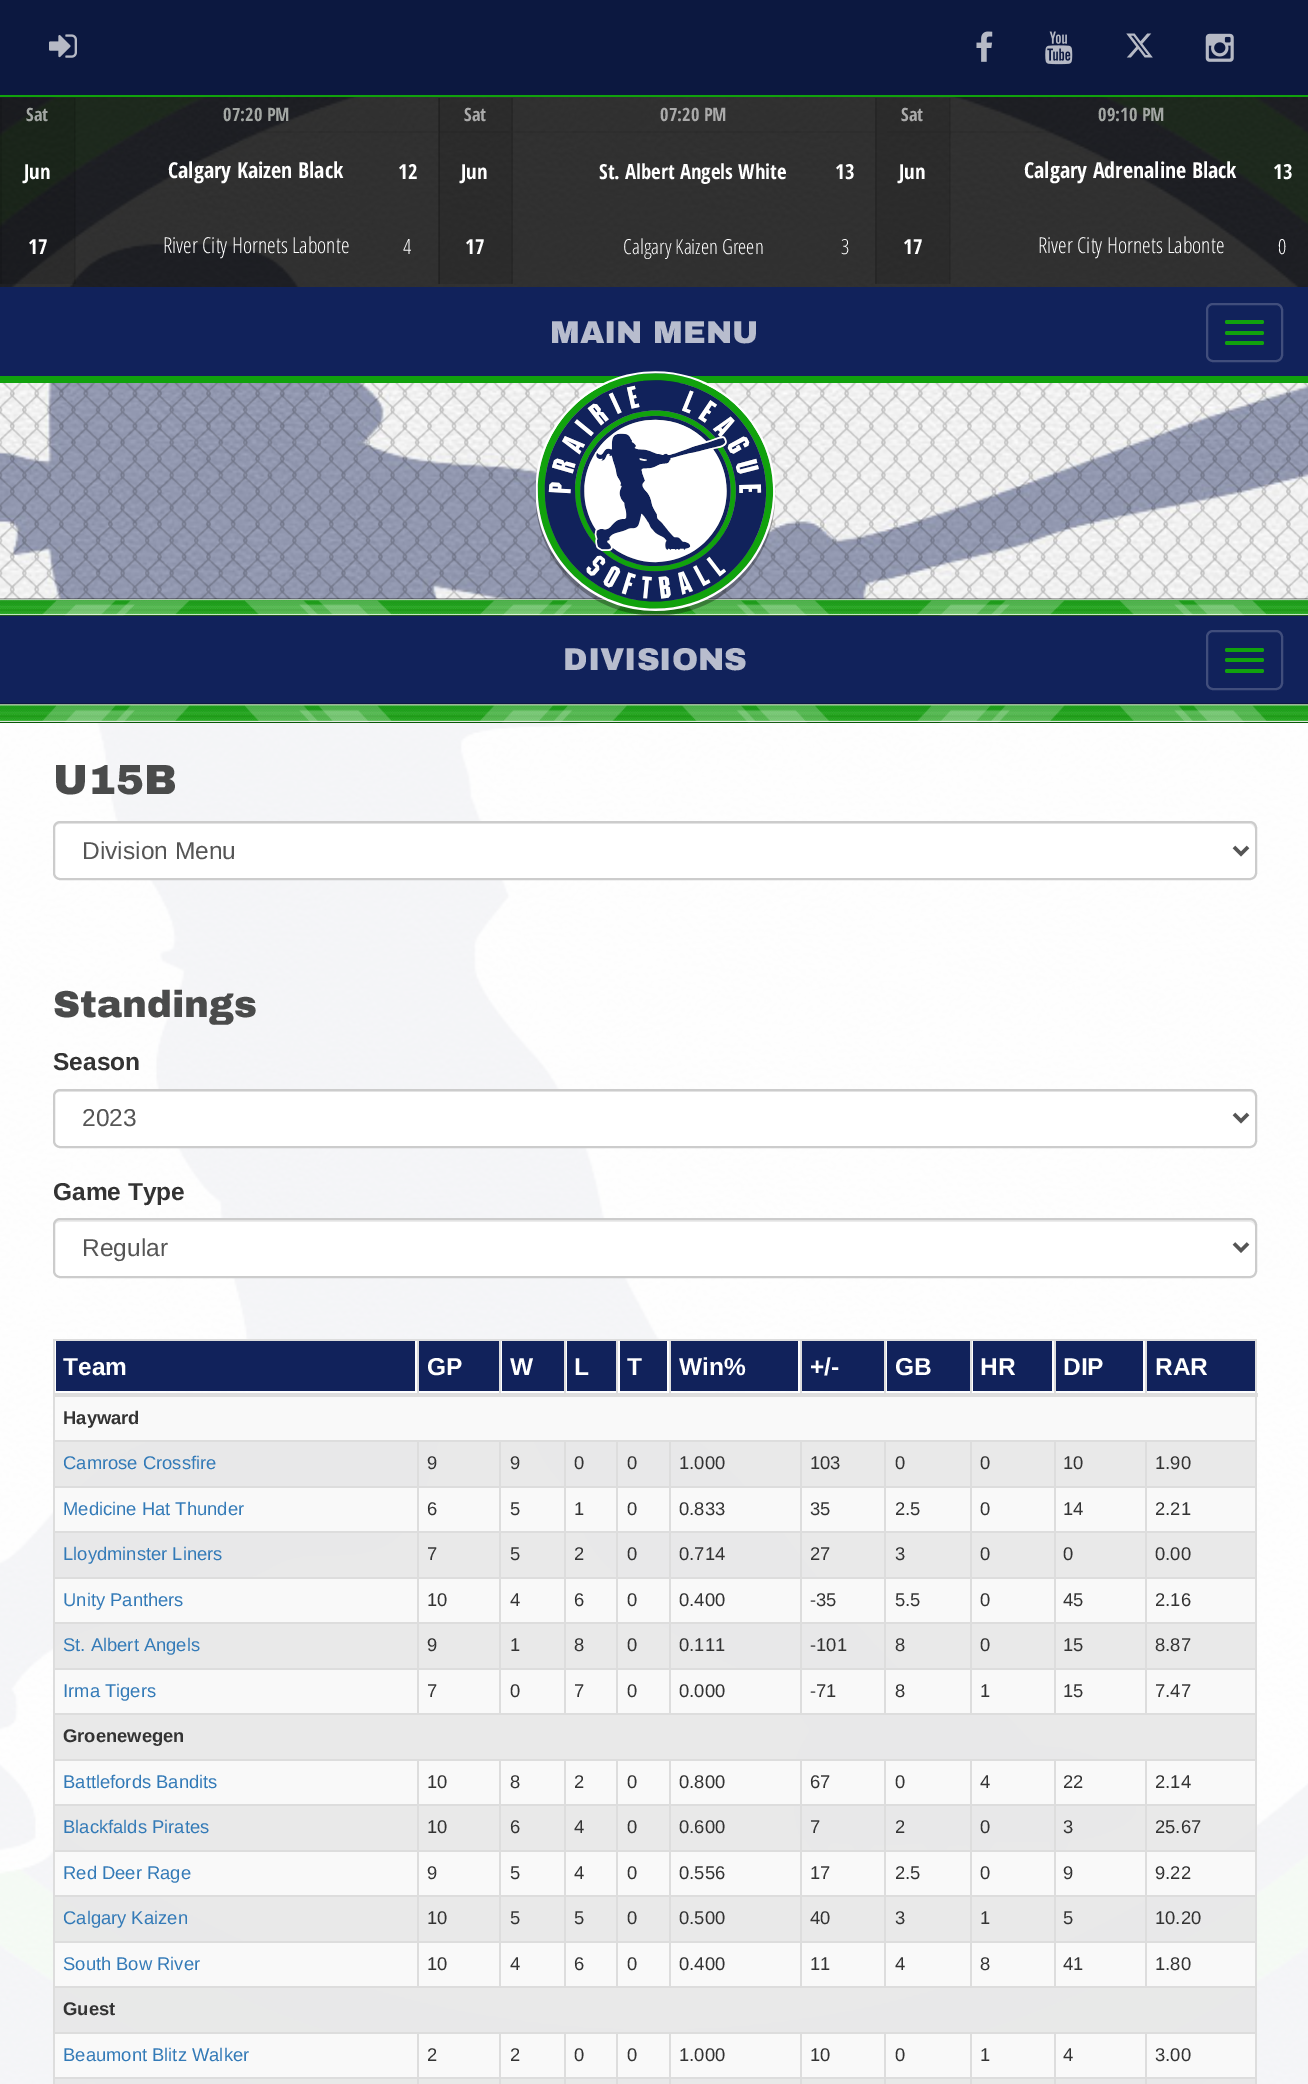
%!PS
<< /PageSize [1308 2084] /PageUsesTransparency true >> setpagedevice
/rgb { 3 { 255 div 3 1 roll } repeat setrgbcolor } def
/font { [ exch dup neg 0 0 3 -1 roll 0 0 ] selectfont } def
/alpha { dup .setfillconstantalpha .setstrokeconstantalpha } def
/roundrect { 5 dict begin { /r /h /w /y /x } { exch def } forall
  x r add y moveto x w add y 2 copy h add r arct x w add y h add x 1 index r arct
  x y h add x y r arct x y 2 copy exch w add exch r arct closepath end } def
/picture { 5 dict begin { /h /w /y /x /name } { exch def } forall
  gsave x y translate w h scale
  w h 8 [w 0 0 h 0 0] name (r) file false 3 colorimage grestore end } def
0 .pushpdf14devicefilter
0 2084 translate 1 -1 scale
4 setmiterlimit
255 255 255 rgb
0 0 1308 2084 rectfill
17 162 13 rgb
0 95 1308 2 rectfill
12 24 64 rgb
0 0 1308 95 rectfill
(img/1.rgb) 49 34 28 24 picture
(img/2.rgb) 976 31 17 31 picture
(img/3.rgb) 1045 31 28 34 picture
(img/4.rgb) 1126 33 27 25 picture
(img/5.rgb) 1205 33 29 29 picture
(img/6.rgb) 0 97 1308 1987 picture
0.8 alpha
[
  [0 97 1308 190 0 0 0]
] { aload pop rgb rectfill } forall
1 alpha
[
  [0 287 1308 89 17 34 91]
] { aload pop rgb rectfill } forall
0.2 alpha
[
  [0 98 2 186 0 0 0]
] { aload pop rgb rectfill } forall
0.1 alpha
[
  [2 98 73 186 0 0 0]
  [74 98 2 186 0 0 0]
] { aload pop rgb rectfill } forall
0.06 alpha
[
  [260 131 178 2 0 0 0]
] { aload pop rgb rectfill } forall
0.2 alpha
[
  [438 98 2 186 0 0 0]
] { aload pop rgb rectfill } forall
0.1 alpha
[
  [439 98 74 186 0 0 0]
  [511 98 2 186 0 0 0]
] { aload pop rgb rectfill } forall
0.06 alpha
[
  [439 131 72 2 0 0 0]
  [513 131 362 2 0 0 0]
] { aload pop rgb rectfill } forall
0.2 alpha
[
  [875 98 2 186 0 0 0]
] { aload pop rgb rectfill } forall
0.1 alpha
[
  [877 98 73 186 0 0 0]
  [949 98 2 186 0 0 0]
] { aload pop rgb rectfill } forall
1 alpha
[
  [887 131 62 2 41 41 41]
] { aload pop rgb rectfill } forall
0.06 alpha
[
  [950 131 99 2 0 0 0]
] { aload pop rgb rectfill } forall
1 alpha
[
  [0 376 1308 7 17 162 13]
] { aload pop rgb rectfill } forall
65 78 124 rgb
2 setlinewidth
1207 304 75 57 6 roundrect stroke
17 162 13 rgb
1225 320 39 4 2 roundrect fill
1225 331 39 4 2 roundrect fill
1225 341 39 4 2 roundrect fill
(img/8.rgb) 0 383 1308 216 picture
0 599 1308 17 rectfill
(img/9.rgb) 0 598 1308 18 picture
(img/7.rgb) 536 371 239 245 picture
17 34 91 rgb
0 616 1308 88 rectfill
65 78 124 rgb
1207 631 75 58 6 roundrect stroke
17 162 13 rgb
1225 648 39 4 2 roundrect fill
1225 658 39 4 2 roundrect fill
1225 669 39 4 2 roundrect fill
0 704 1308 19 rectfill
(img/10.rgb) 0 703 1308 20 picture
0.9 alpha
255 255 255 rgb
0 723 1308 1361 rectfill
1 alpha
53 821 1204 59 7 roundrect fill
236 236 236 rgb
60 824 moveto 1250 824 lineto 1252 824 1255 827 1255 830 curveto 1255 828 lineto 1255 825 1253 823 1250 823 curveto 59 823 lineto 56 823 54 825 54 828 curveto 54 830 lineto 54 827 57 824 60 824 curveto closepath fill
204 204 204 rgb
54 822 1202 57 6 roundrect stroke
85 85 85 rgb
3.5 setlinewidth
1234 847 moveto 1241 854 lineto 1248 847 lineto stroke
255 255 255 rgb
53 1089 1204 59 7 roundrect fill
236 236 236 rgb
60 1092 moveto 1250 1092 lineto 1252 1092 1255 1094 1255 1097 curveto 1255 1095 lineto 1255 1092 1253 1090 1250 1090 curveto 59 1090 lineto 56 1090 54 1092 54 1095 curveto 54 1097 lineto 54 1094 57 1092 60 1092 curveto closepath fill
204 204 204 rgb
2 setlinewidth
54 1090 1202 57 6 roundrect stroke
85 85 85 rgb
3.5 setlinewidth
1234 1114 moveto 1241 1121 lineto 1248 1114 lineto stroke
255 255 255 rgb
53 1218 1204 60 7 roundrect fill
236 236 236 rgb
60 1222 moveto 1250 1222 lineto 1252 1222 1255 1224 1255 1227 curveto 1255 1225 lineto 1255 1222 1253 1220 1250 1220 curveto 59 1220 lineto 56 1220 54 1222 54 1225 curveto 54 1227 lineto 54 1224 57 1222 60 1222 curveto closepath fill
204 204 204 rgb
2 setlinewidth
54 1219 1202 58 6 roundrect stroke
85 85 85 rgb
3.5 setlinewidth
1234 1243.5 moveto 1241 1250.5 lineto 1248 1243.5 lineto stroke
0.9 alpha
[
  [246 1341 431 52 255 255 255]
] { aload pop rgb rectfill } forall
1 alpha
[
  [56 1341 359 50 17 34 91]
  [1145 1339 112 2 221 221 221]
  [1145 1339 2 56 221 221 221]
  [1054 1339 92 2 221 221 221]
  [1054 1339 2 56 221 221 221]
  [970 1339 85 2 221 221 221]
  [970 1339 2 56 221 221 221]
  [884 1339 87 2 221 221 221]
  [884 1339 2 56 221 221 221]
  [800 1339 86 2 221 221 221]
  [800 1339 2 56 221 221 221]
  [669 1339 133 2 221 221 221]
  [669 1339 2 56 221 221 221]
  [616 1339 54 2 221 221 221]
  [616 1339 2 56 221 221 221]
  [564 1339 54 2 221 221 221]
  [564 1339 2 56 221 221 221]
  [499 1339 66 2 221 221 221]
  [499 1339 2 56 221 221 221]
  [417 1339 84 2 221 221 221]
  [417 1339 2 56 221 221 221]
  [53 1339 365 2 221 221 221]
  [1145 1440 112 2 221 221 221]
] { aload pop rgb rectfill } forall
0.9 alpha
[
  [55 1442 1200 44 231 231 231]
] { aload pop rgb rectfill } forall
1 alpha
[
  [1145 1486 112 2 221 221 221]
  [55 1488 1200 43 249 249 249]
  [1145 1531 112 2 221 221 221]
] { aload pop rgb rectfill } forall
0.9 alpha
[
  [55 1533 1200 44 231 231 231]
] { aload pop rgb rectfill } forall
1 alpha
[
  [1145 1577 112 2 221 221 221]
  [55 1579 1200 43 249 249 249]
  [1145 1622 112 2 221 221 221]
] { aload pop rgb rectfill } forall
0.9 alpha
[
  [55 1624 1200 44 231 231 231]
] { aload pop rgb rectfill } forall
1 alpha
[
  [1145 1668 112 2 221 221 221]
  [55 1670 1200 43 249 249 249]
  [53 1713 1204 2 221 221 221]
  [1145 1668 2 47 221 221 221]
  [1054 1668 92 2 221 221 221]
  [1145 1622 2 48 221 221 221]
  [1054 1622 92 2 221 221 221]
  [1145 1577 2 47 221 221 221]
  [1054 1577 92 2 221 221 221]
  [1145 1531 2 48 221 221 221]
  [1054 1531 92 2 221 221 221]
  [1145 1486 2 47 221 221 221]
  [1054 1486 92 2 221 221 221]
  [1145 1440 2 48 221 221 221]
  [1054 1440 92 2 221 221 221]
  [1054 1668 2 47 221 221 221]
  [970 1668 85 2 221 221 221]
  [1054 1622 2 48 221 221 221]
  [970 1622 85 2 221 221 221]
  [1054 1577 2 47 221 221 221]
  [970 1577 85 2 221 221 221]
  [1054 1531 2 48 221 221 221]
  [970 1531 85 2 221 221 221]
  [1054 1486 2 47 221 221 221]
  [970 1486 85 2 221 221 221]
  [1054 1440 2 48 221 221 221]
  [970 1440 85 2 221 221 221]
  [970 1668 2 47 221 221 221]
  [884 1668 87 2 221 221 221]
  [970 1622 2 48 221 221 221]
  [884 1622 87 2 221 221 221]
  [970 1577 2 47 221 221 221]
  [884 1577 87 2 221 221 221]
  [970 1531 2 48 221 221 221]
  [884 1531 87 2 221 221 221]
  [970 1486 2 47 221 221 221]
  [884 1486 87 2 221 221 221]
  [970 1440 2 48 221 221 221]
  [884 1440 87 2 221 221 221]
  [884 1668 2 47 221 221 221]
  [800 1668 86 2 221 221 221]
  [884 1622 2 48 221 221 221]
  [800 1622 86 2 221 221 221]
  [884 1577 2 47 221 221 221]
  [800 1577 86 2 221 221 221]
  [884 1531 2 48 221 221 221]
  [800 1531 86 2 221 221 221]
  [884 1486 2 47 221 221 221]
  [800 1486 86 2 221 221 221]
  [884 1440 2 48 221 221 221]
  [800 1440 86 2 221 221 221]
  [800 1668 2 47 221 221 221]
  [669 1668 133 2 221 221 221]
  [800 1622 2 48 221 221 221]
  [669 1622 133 2 221 221 221]
  [800 1577 2 47 221 221 221]
  [669 1577 133 2 221 221 221]
  [800 1531 2 48 221 221 221]
  [669 1531 133 2 221 221 221]
  [800 1486 2 47 221 221 221]
  [669 1486 133 2 221 221 221]
  [800 1440 2 48 221 221 221]
  [669 1440 133 2 221 221 221]
  [669 1668 2 47 221 221 221]
  [616 1668 54 2 221 221 221]
  [669 1622 2 48 221 221 221]
  [616 1622 54 2 221 221 221]
  [669 1577 2 47 221 221 221]
  [616 1577 54 2 221 221 221]
  [669 1531 2 48 221 221 221]
  [616 1531 54 2 221 221 221]
  [669 1486 2 47 221 221 221]
  [616 1486 54 2 221 221 221]
  [669 1440 2 48 221 221 221]
  [616 1440 54 2 221 221 221]
  [616 1668 2 47 221 221 221]
  [564 1668 54 2 221 221 221]
  [616 1622 2 48 221 221 221]
  [564 1622 54 2 221 221 221]
  [616 1577 2 47 221 221 221]
  [564 1577 54 2 221 221 221]
  [616 1531 2 48 221 221 221]
  [564 1531 54 2 221 221 221]
  [616 1486 2 47 221 221 221]
  [564 1486 54 2 221 221 221]
  [616 1440 2 48 221 221 221]
  [564 1440 54 2 221 221 221]
  [564 1668 2 47 221 221 221]
  [499 1668 66 2 221 221 221]
  [564 1622 2 48 221 221 221]
  [499 1622 66 2 221 221 221]
  [564 1577 2 47 221 221 221]
  [499 1577 66 2 221 221 221]
  [564 1531 2 48 221 221 221]
  [499 1531 66 2 221 221 221]
  [564 1486 2 47 221 221 221]
  [499 1486 66 2 221 221 221]
  [564 1440 2 48 221 221 221]
  [499 1440 66 2 221 221 221]
  [499 1668 2 47 221 221 221]
  [417 1668 84 2 221 221 221]
  [499 1622 2 48 221 221 221]
  [417 1622 84 2 221 221 221]
  [499 1577 2 47 221 221 221]
  [417 1577 84 2 221 221 221]
  [499 1531 2 48 221 221 221]
  [417 1531 84 2 221 221 221]
  [499 1486 2 47 221 221 221]
  [417 1486 84 2 221 221 221]
  [499 1440 2 48 221 221 221]
  [417 1440 84 2 221 221 221]
  [417 1668 2 47 221 221 221]
  [53 1668 365 2 221 221 221]
  [417 1622 2 48 221 221 221]
  [53 1622 365 2 221 221 221]
  [417 1577 2 47 221 221 221]
  [53 1577 365 2 221 221 221]
  [417 1531 2 48 221 221 221]
  [53 1531 365 2 221 221 221]
  [417 1486 2 47 221 221 221]
  [53 1486 365 2 221 221 221]
  [417 1440 2 48 221 221 221]
  [53 1440 365 2 221 221 221]
  [1145 1759 112 2 221 221 221]
  [55 1761 1200 43 249 249 249]
  [1145 1804 112 2 221 221 221]
] { aload pop rgb rectfill } forall
0.9 alpha
[
  [55 1806 1200 44 231 231 231]
] { aload pop rgb rectfill } forall
1 alpha
[
  [1145 1850 112 2 221 221 221]
  [55 1852 1200 43 249 249 249]
  [1145 1895 112 2 221 221 221]
] { aload pop rgb rectfill } forall
0.9 alpha
[
  [55 1897 1200 44 231 231 231]
] { aload pop rgb rectfill } forall
1 alpha
[
  [1145 1941 112 2 221 221 221]
  [55 1943 1200 43 249 249 249]
  [53 1986 1204 2 221 221 221]
  [1145 1941 2 47 221 221 221]
  [1054 1941 92 2 221 221 221]
  [1145 1895 2 48 221 221 221]
  [1054 1895 92 2 221 221 221]
  [1145 1850 2 47 221 221 221]
  [1054 1850 92 2 221 221 221]
  [1145 1804 2 48 221 221 221]
  [1054 1804 92 2 221 221 221]
  [1145 1759 2 47 221 221 221]
  [1054 1759 92 2 221 221 221]
  [1054 1941 2 47 221 221 221]
  [970 1941 85 2 221 221 221]
  [1054 1895 2 48 221 221 221]
  [970 1895 85 2 221 221 221]
  [1054 1850 2 47 221 221 221]
  [970 1850 85 2 221 221 221]
  [1054 1804 2 48 221 221 221]
  [970 1804 85 2 221 221 221]
  [1054 1759 2 47 221 221 221]
  [970 1759 85 2 221 221 221]
  [970 1941 2 47 221 221 221]
  [884 1941 87 2 221 221 221]
  [970 1895 2 48 221 221 221]
  [884 1895 87 2 221 221 221]
  [970 1850 2 47 221 221 221]
  [884 1850 87 2 221 221 221]
  [970 1804 2 48 221 221 221]
  [884 1804 87 2 221 221 221]
  [970 1759 2 47 221 221 221]
  [884 1759 87 2 221 221 221]
  [884 1941 2 47 221 221 221]
  [800 1941 86 2 221 221 221]
  [884 1895 2 48 221 221 221]
  [800 1895 86 2 221 221 221]
  [884 1850 2 47 221 221 221]
  [800 1850 86 2 221 221 221]
  [884 1804 2 48 221 221 221]
  [800 1804 86 2 221 221 221]
  [884 1759 2 47 221 221 221]
  [800 1759 86 2 221 221 221]
  [800 1941 2 47 221 221 221]
  [669 1941 133 2 221 221 221]
  [800 1895 2 48 221 221 221]
  [669 1895 133 2 221 221 221]
  [800 1850 2 47 221 221 221]
  [669 1850 133 2 221 221 221]
  [800 1804 2 48 221 221 221]
  [669 1804 133 2 221 221 221]
  [800 1759 2 47 221 221 221]
  [669 1759 133 2 221 221 221]
  [669 1941 2 47 221 221 221]
  [616 1941 54 2 221 221 221]
  [669 1895 2 48 221 221 221]
  [616 1895 54 2 221 221 221]
  [669 1850 2 47 221 221 221]
  [616 1850 54 2 221 221 221]
  [669 1804 2 48 221 221 221]
  [616 1804 54 2 221 221 221]
  [669 1759 2 47 221 221 221]
  [616 1759 54 2 221 221 221]
  [616 1941 2 47 221 221 221]
  [564 1941 54 2 221 221 221]
  [616 1895 2 48 221 221 221]
  [564 1895 54 2 221 221 221]
  [616 1850 2 47 221 221 221]
  [564 1850 54 2 221 221 221]
  [616 1804 2 48 221 221 221]
  [564 1804 54 2 221 221 221]
  [616 1759 2 47 221 221 221]
  [564 1759 54 2 221 221 221]
  [564 1941 2 47 221 221 221]
  [499 1941 66 2 221 221 221]
  [564 1895 2 48 221 221 221]
  [499 1895 66 2 221 221 221]
  [564 1850 2 47 221 221 221]
  [499 1850 66 2 221 221 221]
  [564 1804 2 48 221 221 221]
  [499 1804 66 2 221 221 221]
  [564 1759 2 47 221 221 221]
  [499 1759 66 2 221 221 221]
  [499 1941 2 47 221 221 221]
  [417 1941 84 2 221 221 221]
  [499 1895 2 48 221 221 221]
  [417 1895 84 2 221 221 221]
  [499 1850 2 47 221 221 221]
  [417 1850 84 2 221 221 221]
  [499 1804 2 48 221 221 221]
  [417 1804 84 2 221 221 221]
  [499 1759 2 47 221 221 221]
  [417 1759 84 2 221 221 221]
  [417 1941 2 47 221 221 221]
  [53 1941 365 2 221 221 221]
  [417 1895 2 48 221 221 221]
  [53 1895 365 2 221 221 221]
  [417 1850 2 47 221 221 221]
  [53 1850 365 2 221 221 221]
  [417 1804 2 48 221 221 221]
  [53 1804 365 2 221 221 221]
  [417 1759 2 47 221 221 221]
  [53 1759 365 2 221 221 221]
  [1145 2032 112 2 221 221 221]
  [55 2034 1200 43 249 249 249]
  [1145 2077 112 2 221 221 221]
] { aload pop rgb rectfill } forall
0.9 alpha
[
  [54 2079 1203 5 231 231 231]
] { aload pop rgb rectfill } forall
1 alpha
[
  [1145 2077 2 7 221 221 221]
  [1054 2077 92 2 221 221 221]
  [1145 2032 2 47 221 221 221]
  [1054 2032 92 2 221 221 221]
  [1054 2077 2 7 221 221 221]
  [970 2077 85 2 221 221 221]
  [1054 2032 2 47 221 221 221]
  [970 2032 85 2 221 221 221]
  [970 2077 2 7 221 221 221]
  [884 2077 87 2 221 221 221]
  [970 2032 2 47 221 221 221]
  [884 2032 87 2 221 221 221]
  [884 2077 2 7 221 221 221]
  [800 2077 86 2 221 221 221]
  [884 2032 2 47 221 221 221]
  [800 2032 86 2 221 221 221]
  [800 2077 2 7 221 221 221]
  [669 2077 133 2 221 221 221]
  [800 2032 2 47 221 221 221]
  [669 2032 133 2 221 221 221]
  [669 2077 2 7 221 221 221]
  [616 2077 54 2 221 221 221]
  [669 2032 2 47 221 221 221]
  [616 2032 54 2 221 221 221]
  [616 2077 2 7 221 221 221]
  [564 2077 54 2 221 221 221]
  [616 2032 2 47 221 221 221]
  [564 2032 54 2 221 221 221]
  [564 2077 2 7 221 221 221]
  [499 2077 66 2 221 221 221]
  [564 2032 2 47 221 221 221]
  [499 2032 66 2 221 221 221]
  [499 2077 2 7 221 221 221]
  [417 2077 84 2 221 221 221]
  [499 2032 2 47 221 221 221]
  [417 2032 84 2 221 221 221]
  [417 2077 2 7 221 221 221]
  [53 2077 365 2 221 221 221]
  [417 2032 2 47 221 221 221]
  [53 2032 365 2 221 221 221]
  [53 2077 2 7 221 221 221]
  [53 2032 2 47 221 221 221]
  [53 1986 2 48 221 221 221]
  [53 1941 2 47 221 221 221]
  [53 1895 2 48 221 221 221]
  [53 1850 2 47 221 221 221]
  [53 1804 2 48 221 221 221]
  [53 1759 2 47 221 221 221]
  [53 1713 2 48 221 221 221]
  [53 1668 2 47 221 221 221]
  [53 1622 2 48 221 221 221]
  [53 1577 2 47 221 221 221]
  [53 1531 2 48 221 221 221]
  [53 1486 2 47 221 221 221]
  [53 1393 2 95 221 221 221]
  [53 1339 2 56 221 221 221]
  [419 1341 80 50 17 34 91]
  [502 1341 62 50 17 34 91]
  [567 1341 49 50 17 34 91]
  [620 1341 47 50 17 34 91]
  [671 1341 127 50 17 34 91]
  [802 1341 82 50 17 34 91]
  [887 1341 83 50 17 34 91]
  [973 1341 79 50 17 34 91]
  [1056 1341 87 50 17 34 91]
  [1147 1341 108 50 17 34 91]
  [1255 2077 2 7 221 221 221]
  [1255 2032 2 47 221 221 221]
  [1255 1986 2 48 221 221 221]
  [1255 1941 2 47 221 221 221]
  [1255 1895 2 48 221 221 221]
  [1255 1850 2 47 221 221 221]
  [1255 1804 2 48 221 221 221]
  [1255 1759 2 47 221 221 221]
  [1255 1713 2 48 221 221 221]
  [1255 1668 2 47 221 221 221]
  [1255 1622 2 48 221 221 221]
  [1255 1577 2 47 221 221 221]
  [1255 1531 2 48 221 221 221]
  [1255 1486 2 47 221 221 221]
  [1255 1393 2 95 221 221 221]
  [1255 1339 2 56 221 221 221]
  [53 1393 1205 4 221 221 221]
  [55 1397 1200 43 249 249 249]
] { aload pop rgb rectfill } forall
0.9 alpha
[
  [55 1715 1200 44 231 231 231]
  [55 1988 1200 44 231 231 231]
] { aload pop rgb rectfill } forall
/OpenSansCondensed-Bold 18.4 font
1 alpha
163 167 164 rgb
26 121 moveto (Sat) show
/OpenSansCondensed-Bold 20.75 font
255 255 255 rgb
24 179 moveto (Jun) show
28 254 moveto (17) show
/OpenSansCondensed-Bold 18.4 font
163 167 164 rgb
223 121 moveto (07:20 PM) show
/OpenSansCondensed-Bold 22 font
255 255 255 rgb
168 178 moveto (Calgary Kaizen Black) show
/OpenSansCondensed-Light 22 font
163 253 moveto (River City Hornets Labonte) show
/OpenSansCondensed-Bold 20.75 font
398 179 moveto (12) show
/OpenSansCondensed-Light 20.75 font
403 254 moveto (4) show
/OpenSansCondensed-Bold 18.4 font
170 170 170 rgb
464 121 moveto (Sat) show
/OpenSansCondensed-Bold 20.75 font
255 255 255 rgb
461 179 moveto (Jun) show
465 254 moveto (17) show
/OpenSansCondensed-Bold 18.4 font
170 170 170 rgb
660 121 moveto (07:20 PM) show
/OpenSansCondensed-Bold 20.75 font
255 255 255 rgb
599 179 moveto (St. Albert Angels White) show
/OpenSansCondensed-Light 20.75 font
623 254 moveto (Calgary Kaizen Green) show
/OpenSansCondensed-Bold 20.75 font
835 179 moveto (13) show
/OpenSansCondensed-Light 20.75 font
841 254 moveto (3) show
/OpenSansCondensed-Bold 18.4 font
170 170 170 rgb
901 121 moveto (Sat) show
/OpenSansCondensed-Bold 20.75 font
255 255 255 rgb
899 179 moveto (Jun) show
903 254 moveto (17) show
/OpenSansCondensed-Bold 18.4 font
163 167 164 rgb
1098 121 moveto (09:10 PM) show
/OpenSansCondensed-Bold 22 font
255 255 255 rgb
1024 178 moveto (Calgary Adrenaline Black) show
/OpenSansCondensed-Light 22 font
1038 253 moveto (River City Hornets Labonte) show
/OpenSansCondensed-Bold 20.75 font
1273 179 moveto (13) show
/OpenSansCondensed-Light 20.75 font
1278 254 moveto (0) show
/ArchivoBlack-Black 31.5 font
184 189 206 rgb
550 343 moveto (MAIN MENU) show
563 670 moveto (DIVISIONS) show
/ArchivoBlack-Black 42 font
74 75 75 rgb
53 794 moveto (U15B) show
/LiberationSans-Regular 24.5 font
85 85 85 rgb
82 859 moveto (Division Menu) show
/ArchivoBlack-Black 37.5 font
74 75 75 rgb
53 1017 moveto (Standings) show
/LiberationSans-Bold 24.5 font
51 51 51 rgb
53 1070 moveto (Season) show
/LiberationSans-Regular 24.5 font
85 85 85 rgb
82 1126 moveto (2023) show
/LiberationSans-Bold 24.5 font
51 51 51 rgb
53 1200 moveto (Game Type) show
/LiberationSans-Regular 24.5 font
85 85 85 rgb
82 1256 moveto (Regular) show
/LiberationSans-Bold 24.5 font
255 255 255 rgb
[
  [(Team) 63 1375]
  [(GP) 427 1375]
  [(W) 510 1375]
  [(L) 574 1375]
  [(T) 627 1375]
  [(Win%) 679 1375]
  [(+/-) 810 1375]
  [(GB) 895 1375]
  [(HR) 980 1375]
  [(DIP) 1063 1375]
  [(RAR) 1155 1375]
] { aload pop moveto show } forall
/LiberationSans-Bold 18.4 font
51 51 51 rgb
63 1424 moveto (Hayward) show
/LiberationSans-Regular 18.4 font
51 122 183 rgb
63 1469 moveto (Camrose Crossfire) show
51 51 51 rgb
[
  [(9) 427 1469]
  [(9) 510 1469]
  [(0) 574 1469]
  [(0) 627 1469]
  [(1.000) 679 1469]
  [(103) 810 1469]
  [(0) 895 1469]
  [(0) 980 1469]
  [(10) 1063 1469]
  [(1.90) 1155 1469]
] { aload pop moveto show } forall
51 122 183 rgb
63 1515 moveto (Medicine Hat Thunder) show
51 51 51 rgb
[
  [(6) 427 1515]
  [(5) 510 1515]
  [(1) 574 1515]
  [(0) 627 1515]
  [(0.833) 679 1515]
  [(35) 810 1515]
  [(2.5) 895 1515]
  [(0) 980 1515]
  [(14) 1063 1515]
  [(2.21) 1155 1515]
] { aload pop moveto show } forall
51 122 183 rgb
63 1560 moveto (Lloydminster Liners) show
51 51 51 rgb
[
  [(7) 427 1560]
  [(5) 510 1560]
  [(2) 574 1560]
  [(0) 627 1560]
  [(0.714) 679 1560]
  [(27) 810 1560]
  [(3) 895 1560]
  [(0) 980 1560]
  [(0) 1063 1560]
  [(0.00) 1155 1560]
] { aload pop moveto show } forall
51 122 183 rgb
63 1606 moveto (Unity Panthers) show
51 51 51 rgb
[
  [(10) 427 1606]
  [(4) 510 1606]
  [(6) 574 1606]
  [(0) 627 1606]
  [(0.400) 679 1606]
  [(-35) 810 1606]
  [(5.5) 895 1606]
  [(0) 980 1606]
  [(45) 1063 1606]
  [(2.16) 1155 1606]
] { aload pop moveto show } forall
51 122 183 rgb
63 1651 moveto (St. Albert Angels) show
51 51 51 rgb
[
  [(9) 427 1651]
  [(1) 510 1651]
  [(8) 574 1651]
  [(0) 627 1651]
  [(0.111) 679 1651]
  [(-101) 810 1651]
  [(8) 895 1651]
  [(0) 980 1651]
  [(15) 1063 1651]
  [(8.87) 1155 1651]
] { aload pop moveto show } forall
51 122 183 rgb
63 1697 moveto (Irma Tigers) show
51 51 51 rgb
[
  [(7) 427 1697]
  [(0) 510 1697]
  [(7) 574 1697]
  [(0) 627 1697]
  [(0.000) 679 1697]
  [(-71) 810 1697]
  [(8) 895 1697]
  [(1) 980 1697]
  [(15) 1063 1697]
  [(7.47) 1155 1697]
] { aload pop moveto show } forall
/LiberationSans-Bold 18.4 font
63 1742 moveto (Groenewegen) show
/LiberationSans-Regular 18.4 font
51 122 183 rgb
63 1788 moveto (Battlefords Bandits) show
51 51 51 rgb
[
  [(10) 427 1788]
  [(8) 510 1788]
  [(2) 574 1788]
  [(0) 627 1788]
  [(0.800) 679 1788]
  [(67) 810 1788]
  [(0) 895 1788]
  [(4) 980 1788]
  [(22) 1063 1788]
  [(2.14) 1155 1788]
] { aload pop moveto show } forall
51 122 183 rgb
63 1833 moveto (Blackfalds Pirates) show
51 51 51 rgb
[
  [(10) 427 1833]
  [(6) 510 1833]
  [(4) 574 1833]
  [(0) 627 1833]
  [(0.600) 679 1833]
  [(7) 810 1833]
  [(2) 895 1833]
  [(0) 980 1833]
  [(3) 1063 1833]
  [(25.67) 1155 1833]
] { aload pop moveto show } forall
51 122 183 rgb
63 1879 moveto (Red Deer Rage) show
51 51 51 rgb
[
  [(9) 427 1879]
  [(5) 510 1879]
  [(4) 574 1879]
  [(0) 627 1879]
  [(0.556) 679 1879]
  [(17) 810 1879]
  [(2.5) 895 1879]
  [(0) 980 1879]
  [(9) 1063 1879]
  [(9.22) 1155 1879]
] { aload pop moveto show } forall
51 122 183 rgb
63 1924 moveto (Calgary Kaizen) show
51 51 51 rgb
[
  [(10) 427 1924]
  [(5) 510 1924]
  [(5) 574 1924]
  [(0) 627 1924]
  [(0.500) 679 1924]
  [(40) 810 1924]
  [(3) 895 1924]
  [(1) 980 1924]
  [(5) 1063 1924]
  [(10.20) 1155 1924]
] { aload pop moveto show } forall
51 122 183 rgb
63 1970 moveto (South Bow River) show
51 51 51 rgb
[
  [(10) 427 1970]
  [(4) 510 1970]
  [(6) 574 1970]
  [(0) 627 1970]
  [(0.400) 679 1970]
  [(11) 810 1970]
  [(4) 895 1970]
  [(8) 980 1970]
  [(41) 1063 1970]
  [(1.80) 1155 1970]
] { aload pop moveto show } forall
/LiberationSans-Bold 18.4 font
63 2015 moveto (Guest) show
/LiberationSans-Regular 18.4 font
51 122 183 rgb
63 2061 moveto (Beaumont Blitz Walker) show
51 51 51 rgb
[
  [(2) 427 2061]
  [(2) 510 2061]
  [(0) 574 2061]
  [(0) 627 2061]
  [(1.000) 679 2061]
  [(10) 810 2061]
  [(0) 895 2061]
  [(1) 980 2061]
  [(4) 1063 2061]
  [(3.00) 1155 2061]
] { aload pop moveto show } forall
.poppdf14devicefilter showpage
